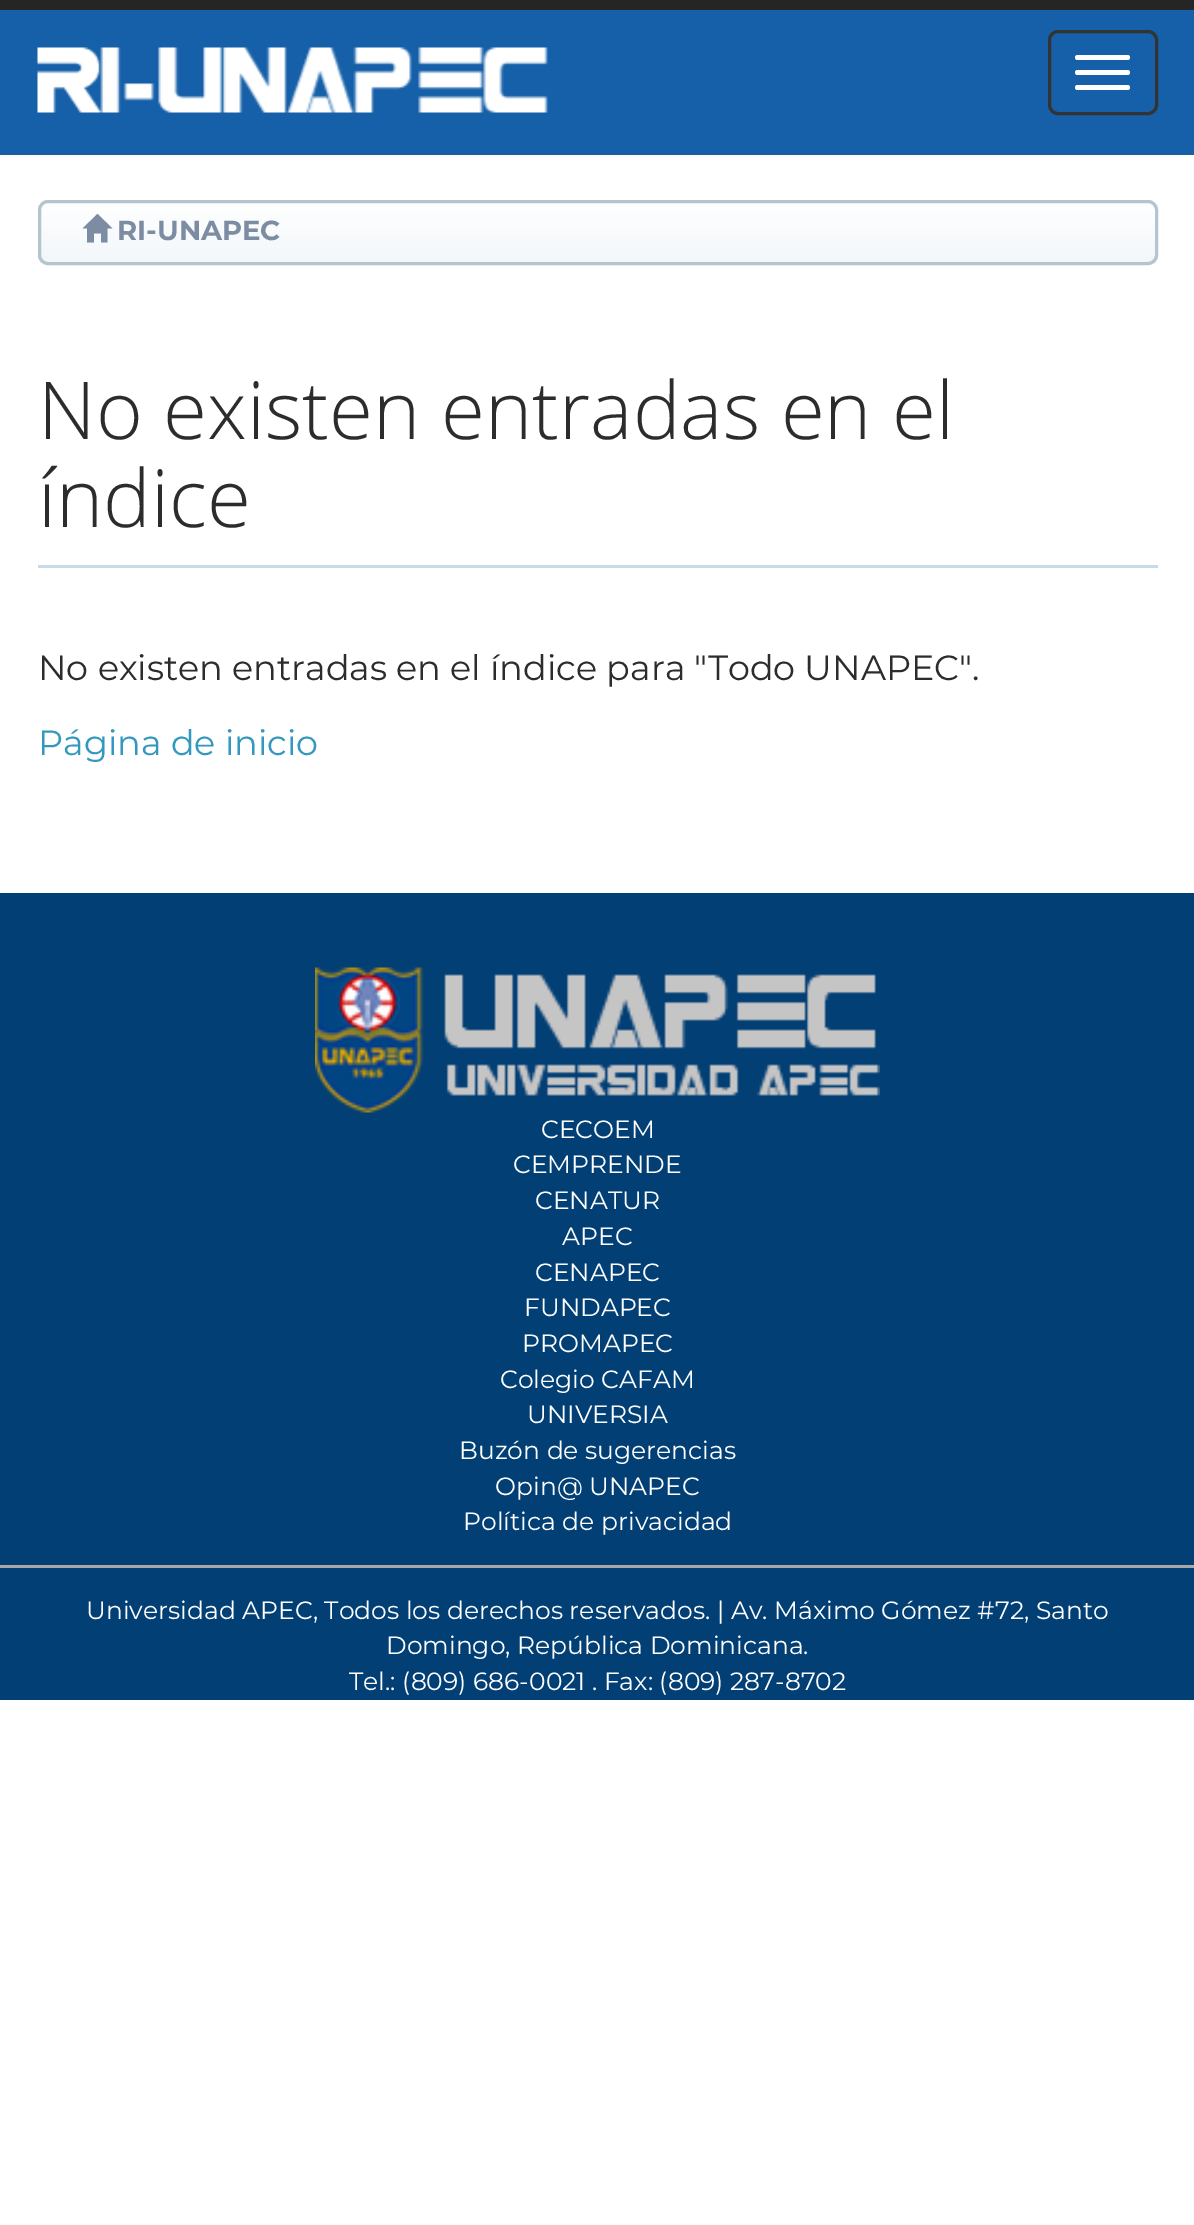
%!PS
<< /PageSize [1194 2225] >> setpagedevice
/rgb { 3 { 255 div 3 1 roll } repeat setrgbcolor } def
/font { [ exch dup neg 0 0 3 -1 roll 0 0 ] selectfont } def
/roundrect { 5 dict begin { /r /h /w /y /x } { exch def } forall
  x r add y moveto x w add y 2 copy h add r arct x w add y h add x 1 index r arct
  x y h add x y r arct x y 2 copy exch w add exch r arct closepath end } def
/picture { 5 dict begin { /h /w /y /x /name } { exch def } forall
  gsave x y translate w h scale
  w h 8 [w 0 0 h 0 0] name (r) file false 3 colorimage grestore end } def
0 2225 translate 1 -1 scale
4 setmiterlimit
255 255 255 rgb
0 0 1194 2225 rectfill
21 96 168 rgb
0 10 1194 145 rectfill
37 37 37 rgb
0 0 1194 10 rectfill
(img/1.rgb) 37 47 511 66 picture
51 51 51 rgb
3 setlinewidth
1049.5 31.5 107 82 8.5 roundrect stroke
255 255 255 rgb
1075 55 55 5 2.5 roundrect fill
1075 70 55 5 2.5 roundrect fill
1075 85 55 5 2.5 roundrect fill
gsave
38 200 1120 65 10 roundrect clip newpath
gsave 38 203 moveto 1158 203 lineto 1158 263 lineto 38 263 lineto closepath clip newpath
<< /ShadingType 2 /ColorSpace /DeviceRGB /Coords [598 202 598 263] /Extend [true true] /Function << /FunctionType 2 /Domain [0 1] /C0 [1 1 1] /C1 [0.949 0.969 0.98] /N 1 >> >> shfill grestore
grestore
180 197 207 rgb
39.5 201.5 1117 62 8.5 roundrect stroke
124 140 162 rgb
82.5 228.5 moveto 97.5 214 lineto 112.5 228.5 lineto 107.5 228.5 lineto 107.5 242.5 lineto 101 242.5 lineto 101 233.5 lineto 94 233.5 lineto 94 242.5 lineto 87 242.5 lineto 87 228.5 lineto closepath fill
199 219 233 rgb
38 565 1120 3 rectfill
2 63 117 rgb
0 893 1194 807 rectfill
(img/2.rgb) 315 967 565 146 picture
169 168 168 rgb
0 1565 1194 3 rectfill
/Montserrat-Bold 27.5 font
124 140 162 rgb
117 240 moveto (RI-UNAPEC) show
/OpenSans-Light 80 font
44 44 44 rgb
38 439 moveto (No existen entradas en el) show
38 527 moveto (índice) show
/Montserrat-Regular 35 font
38 680 moveto (No existen entradas en el índice para "Todo UNAPEC".) show
51 152 190 rgb
38 755 moveto (Página de inicio) show
/Montserrat-Regular 25 font
255 255 255 rgb
[
  [(CECOEM) 541 1138]
  [(CEMPRENDE) 513 1173]
  [(CENATUR) 535 1209]
  [(APEC) 562 1245]
  [(CENAPEC) 535 1281]
  [(FUNDAPEC) 524 1316]
  [(PROMAPEC) 522 1352]
  [(Colegio CAFAM) 500 1388]
  [(UNIVERSIA) 527 1423]
  [(Buzón de sugerencias) 459 1459]
  [(Opin@ UNAPEC) 495 1495]
  [(Política de privacidad) 463 1530]
  [(Universidad APEC, Todos los derechos reservados. | Av. Máximo Gómez #72, Santo) 86 1619]
  [(Domingo, República Dominicana.) 386 1654]
  [(Tel.: \(809\) 686-0021 . Fax: \(809\) 287-8702) 349 1690]
] { aload pop moveto show } forall
showpage
